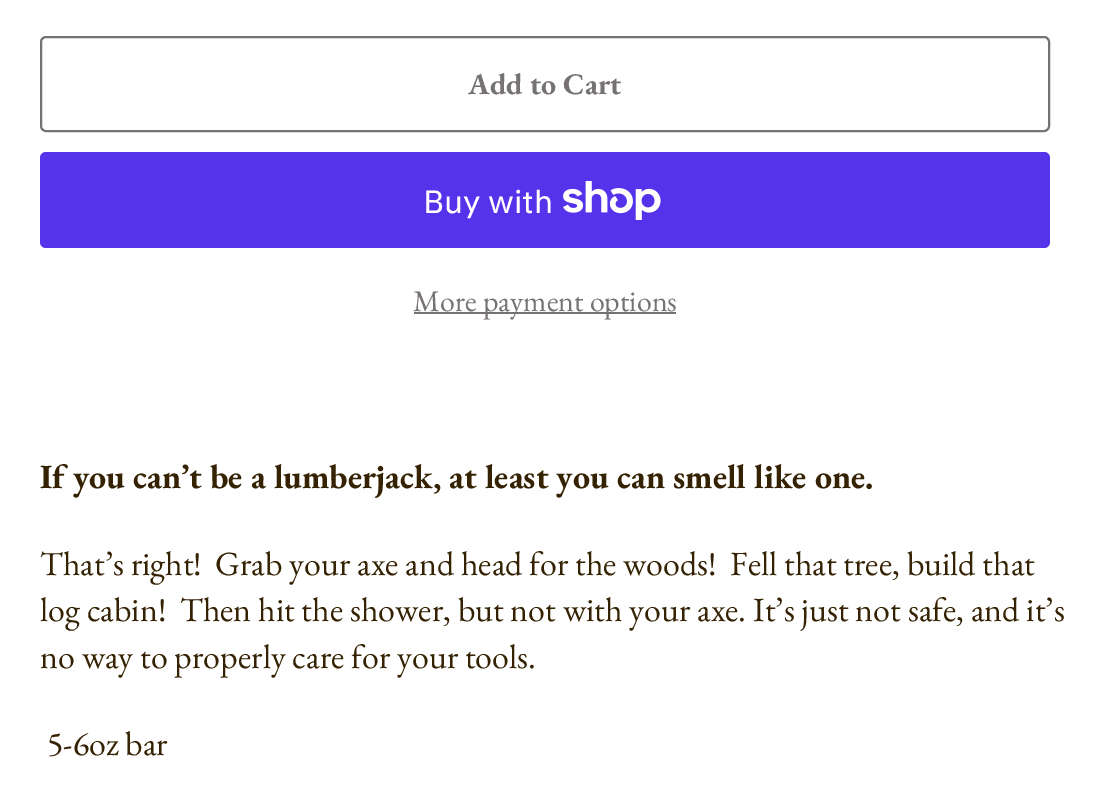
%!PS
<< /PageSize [1109 790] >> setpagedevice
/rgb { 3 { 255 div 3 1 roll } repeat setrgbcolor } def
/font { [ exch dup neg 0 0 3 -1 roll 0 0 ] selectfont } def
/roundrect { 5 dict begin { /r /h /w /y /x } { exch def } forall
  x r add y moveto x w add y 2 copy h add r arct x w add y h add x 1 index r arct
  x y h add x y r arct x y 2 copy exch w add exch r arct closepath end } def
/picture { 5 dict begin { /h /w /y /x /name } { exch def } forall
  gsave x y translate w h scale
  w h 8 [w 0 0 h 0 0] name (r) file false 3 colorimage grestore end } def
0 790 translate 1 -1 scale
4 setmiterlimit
255 255 255 rgb
0 0 1109 790 rectfill
118 114 113 rgb
2 setlinewidth
41 37 1008 94 5 roundrect stroke
84 51 235 rgb
40 152 1010 96 6 roundrect fill
(img/1.rgb) 563 181 98 39 picture
118 114 113 rgb
414 312 262 2 rectfill
/EBGaramond-Bold 30 font
468 94 moveto (Add to Cart) show
/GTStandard-Regular 32 font
255 255 255 rgb
423 213 moveto (Buy with) show
/EBGaramond-Regular 30 font
118 114 113 rgb
413 311 moveto (More payment options) show
/EBGaramond-Bold 34 font
53 34 2 rgb
40 488 moveto (If you can’t be a lumberjack, at least you can smell like one.) show
/EBGaramond-Regular 34 font
[
  [(That’s right!  Grab your axe and head for the woods!  Fell that tree, build that) 40 575]
  [(log cabin!  Then hit the shower, but not with your axe. It’s just not safe, and it’s) 40 621]
  [(no way to properly care for your tools.) 40 668]
  [(5-6oz bar) 47 755]
] { aload pop moveto show } forall
showpage
